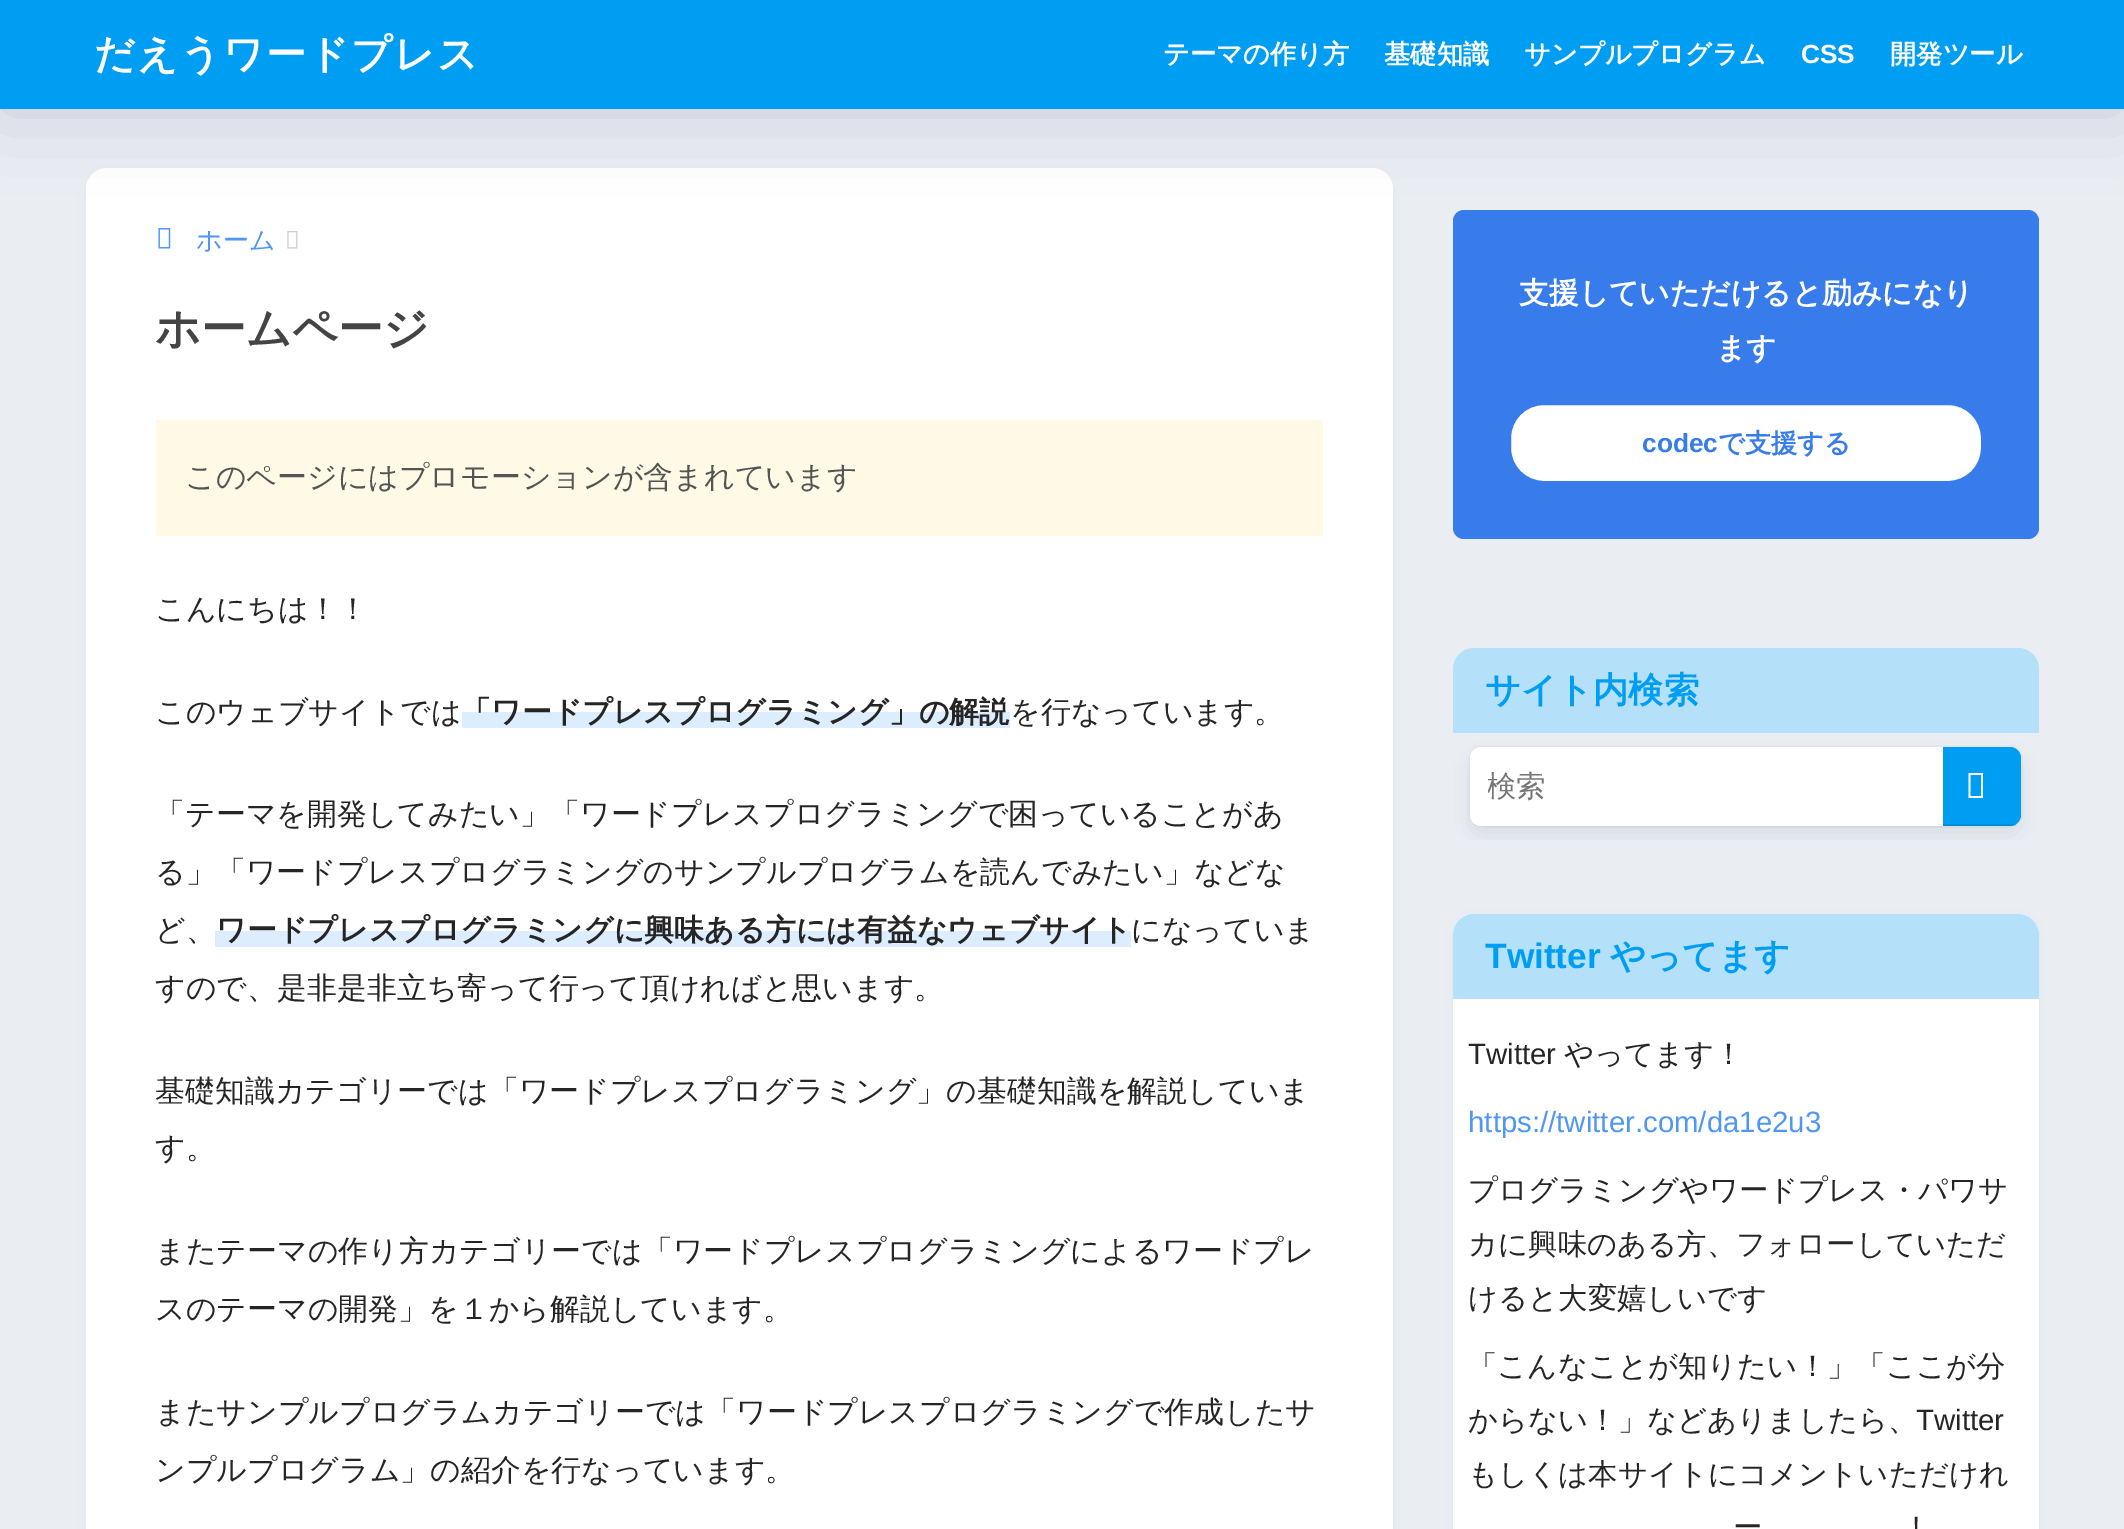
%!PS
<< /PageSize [2124 1529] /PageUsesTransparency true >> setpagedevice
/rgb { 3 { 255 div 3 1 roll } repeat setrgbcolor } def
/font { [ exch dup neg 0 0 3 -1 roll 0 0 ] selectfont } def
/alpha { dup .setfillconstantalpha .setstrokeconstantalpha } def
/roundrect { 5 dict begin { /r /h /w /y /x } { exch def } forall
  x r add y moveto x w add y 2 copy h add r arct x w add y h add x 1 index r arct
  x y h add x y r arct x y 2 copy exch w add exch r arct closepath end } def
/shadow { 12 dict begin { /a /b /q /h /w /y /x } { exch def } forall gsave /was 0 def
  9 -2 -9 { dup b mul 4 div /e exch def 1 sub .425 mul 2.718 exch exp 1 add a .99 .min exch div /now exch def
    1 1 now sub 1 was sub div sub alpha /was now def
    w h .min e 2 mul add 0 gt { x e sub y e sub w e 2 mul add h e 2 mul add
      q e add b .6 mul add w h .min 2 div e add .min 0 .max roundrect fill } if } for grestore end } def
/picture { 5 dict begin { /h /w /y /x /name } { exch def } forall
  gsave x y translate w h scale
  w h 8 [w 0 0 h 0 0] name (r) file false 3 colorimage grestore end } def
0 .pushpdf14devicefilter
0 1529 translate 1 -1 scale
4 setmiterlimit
234 237 242 rgb
0 0 2124 1529 rectfill
67 133 187 rgb
86 172 1307 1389 21 3.5 0.07 shadow
255 255 255 rgb
86 168 1307 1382 21 roundrect fill
(img/1.rgb) 158 228 13 21 picture
56 124 236 rgb
1453 210 586 329 11 roundrect fill
0 12 66 rgb
0 0 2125 109 0 39.5 0.15 shadow
0 158 243 rgb
0 0 2124 109 rectfill
(img/2.rgb) 287 231 11 18 picture
[
  [156 420 1167 116 255 249 229]
  [462 712 548 16 219 237 255]
  [215 931 916 16 219 237 255]
] { aload pop rgb rectfill } forall
255 255 255 rgb
1510 404 472 78 34 roundrect gsave fill grestore
56 124 236 rgb
2 setlinewidth
stroke
180 224 250 rgb
1474 648 moveto 2018 648 lineto 2029.5 648 2039 657.5 2039 669 curveto 2039 733 lineto 1453 733 lineto 1453 669 lineto 1453 657.5 1462.5 648 1474 648 curveto closepath fill
0 30 100 rgb
1470 747 551 79 11 1 0.1 shadow
gsave
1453 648 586 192 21 roundrect clip newpath
0 12 66 rgb
1475 763 541 68 5 11.5 0.1 shadow
grestore
255 255 255 rgb
1470 747 551 79 11 roundrect fill
0 158 243 rgb
1943 747 moveto 2010 747 lineto 2016 747 2021 752 2021 758 curveto 2021 815 lineto 2021 821 2016 826 2010 826 curveto 1943 826 lineto closepath fill
0.1 alpha
0 0 0 rgb
1943 824 73 2 rectfill
1 alpha
255 255 255 rgb
1968.5 798 moveto 1968.5 773 lineto 1983 773 lineto 1983 798 lineto closepath 1970.5 796 moveto 1981 796 lineto 1981 775 lineto 1970.5 775 lineto closepath fill
67 133 187 rgb
1453 917 586 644 21 3.5 0.07 shadow
255 255 255 rgb
1453 914 586 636 21 roundrect fill
180 224 250 rgb
1474 914 moveto 2018 914 lineto 2029.5 914 2039 923.5 2039 935 curveto 2039 999 lineto 1453 999 lineto 1453 935 lineto 1453 923.5 1462.5 914 1474 914 curveto closepath fill
/WenQuanYiZenHei-Bold 40.25 font
255 255 255 rgb
94 68 moveto 1.75 0 (だえうワードプレス) ashow
/WenQuanYiZenHei-Bold 26.25 font
[
  [(テーマの作り方) 1163 63]
  [(基礎知識) 1384 63]
  [(サンプルプログラム) 1524 63]
] { aload pop moveto show } forall
/LiberationSans-Bold 26.25 font
1801 63 moveto (CSS) show
/WenQuanYiZenHei-Bold 26.25 font
1890 63 moveto (開発ツール) show
/WenQuanYiZenHei-Medium 26 font
79 150 246 rgb
196 249 moveto (ホーム) show
/WenQuanYiZenHei-Bold 45 font
68 68 68 rgb
155 344 moveto (ホームページ) show
/WenQuanYiZenHei-Medium 29.95 font
84 84 84 rgb
185 487 moveto (このページにはプロモーションが含まれています) show
37 37 37 rgb
155 619 moveto (こんにちは！！) show
155 722 moveto (このウェブサイトでは) show
/WenQuanYiZenHei-Bold 29.95 font
461 722 moveto (「ワードプレスプログラミング」の解説) show
/WenQuanYiZenHei-Medium 29.95 font
[
  [(を行なっています。) 1010 722]
  [(「テーマを開発してみたい」「ワードプレスプログラミングで困っていることがあ) 155 824]
  [(る」「ワードプレスプログラミングのサンプルプログラムを読んでみたい」などな) 155 882]
  [(ど、) 155 940]
] { aload pop moveto show } forall
/WenQuanYiZenHei-Bold 29.95 font
216 940 moveto (ワードプレスプログラミングに興味ある方には有益なウェブサイト) show
/WenQuanYiZenHei-Medium 29.95 font
[
  [(になっていま) 1131 940]
  [(すので、是非是非立ち寄って行って頂ければと思います。) 155 998]
  [(基礎知識カテゴリーでは「ワードプレスプログラミング」の基礎知識を解説していま) 155 1101]
  [(す。) 155 1158]
  [(またテーマの作り方カテゴリーでは「ワードプレスプログラミングによるワードプレ) 155 1261]
  [(スのテーマの開発」を１から解説しています。) 155 1319]
  [(またサンプルプログラムカテゴリーでは「ワードプレスプログラミングで作成したサ) 155 1422]
  [(ンプルプログラム」の紹介を行なっています。) 155 1480]
] { aload pop moveto show } forall
/WenQuanYiZenHei-Bold 29.75 font
255 255 255 rgb
1519 303 moveto (支援していただけると励みになり) show
1716 358 moveto (ます) show
/LiberationSans-Bold 26.25 font
56 124 236 rgb
1642 452 moveto (codec) show
/WenQuanYiZenHei-Bold 26.25 font
1718 452 moveto (で支援する) show
/WenQuanYiZenHei-Bold 35.25 font
0 158 243 rgb
1485 702 moveto (サイト内検索) show
gsave
1488 767 442 40 rectclip
/WenQuanYiZenHei-Medium 29.4 font
117 117 117 rgb
1487 796 moveto (検索) show
grestore
/LiberationSans-Bold 35.25 font
1485 968 moveto (Twitter) show
/WenQuanYiZenHei-Bold 35.25 font
1610 968 moveto (やってます) show
/LiberationSans-Regular 29.4 font
37 37 37 rgb
1468 1064 moveto (Twitter) show
/WenQuanYiZenHei-Medium 29.4 font
1564 1064 moveto (やってます！) show
/LiberationSans-Regular 29.4 font
79 150 246 rgb
1468 1132 moveto (https://twitter.com/da1e2u3) show
/WenQuanYiZenHei-Medium 29.4 font
37 37 37 rgb
[
  [(プログラミングやワードプレス・パワサ) 1468 1200]
  [(カに興味のある方、フォローしていただ) 1468 1254]
  [(けると大変嬉しいです) 1468 1308]
  [(「こんなことが知りたい！」「ここが分) 1468 1376]
  [(からない！」などありましたら、) 1468 1430]
] { aload pop moveto show } forall
/LiberationSans-Regular 29.4 font
1916 1430 moveto (Twitter) show
/WenQuanYiZenHei-Medium 29.4 font
1468 1484 moveto (もしくは本サイトにコメントいただけれ) show
1733 1537 moveto (ー) show
/LiberationSans-Regular 29.4 font
1912 1537 moveto (!) show
.poppdf14devicefilter showpage
